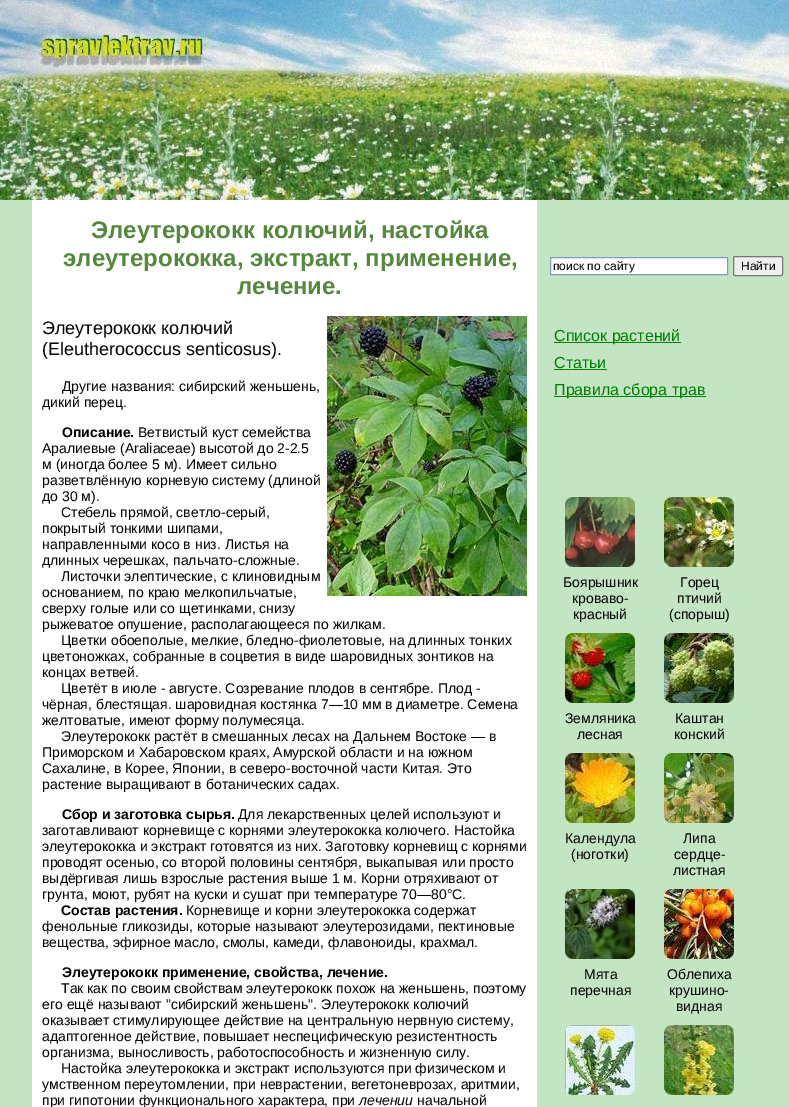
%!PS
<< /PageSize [789 1107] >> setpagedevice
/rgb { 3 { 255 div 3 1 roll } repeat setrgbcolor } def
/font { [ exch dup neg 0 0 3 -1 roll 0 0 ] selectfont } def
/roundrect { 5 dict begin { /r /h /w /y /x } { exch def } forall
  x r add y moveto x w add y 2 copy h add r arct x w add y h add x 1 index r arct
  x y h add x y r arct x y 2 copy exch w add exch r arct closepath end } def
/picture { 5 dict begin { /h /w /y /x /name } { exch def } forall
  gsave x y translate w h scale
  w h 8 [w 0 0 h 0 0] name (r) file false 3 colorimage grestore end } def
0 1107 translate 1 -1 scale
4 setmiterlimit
196 229 196 rgb
0 0 789 1107 rectfill
(img/1.rgb) 0 0 789 200 picture
255 255 255 rgb
32 200 505 907 rectfill
(img/2.rgb) 327 316 200 280 picture
550.5 257.5 moveto 727.5 257.5 lineto 727.5 274.5 lineto 550.5 274.5 lineto closepath gsave fill grestore
127 157 185 rgb
stroke
239 239 239 rgb
733.5 256.5 49 19 1.5 roundrect gsave fill grestore
118 118 118 rgb
stroke
[
  [554 342 127 1 0 128 0]
  [554 369 53 1 0 128 0]
  [554 396 152 1 0 128 0]
] { aload pop rgb rectfill } forall
(img/3.rgb) 565 497 70 70 picture
(img/4.rgb) 664 497 70 70 picture
(img/5.rgb) 565 633 70 70 picture
(img/6.rgb) 664 633 70 70 picture
(img/7.rgb) 565 753 70 70 picture
(img/8.rgb) 664 753 70 70 picture
(img/9.rgb) 565 889 70 70 picture
(img/10.rgb) 664 889 70 70 picture
(img/11.rgb) 565 1025 70 70 picture
(img/12.rgb) 664 1025 70 70 picture
/LiberationSans-Bold 24 font
84 136 61 rgb
[
  [(Элеутерококк колючий, настойка) 91 238]
  [(элеутерококка, экстракт, применение,) 63 266]
  [(лечение.) 237 294]
] { aload pop moveto show } forall
/LiberationSans-Regular 18 font
0 0 0 rgb
42 334 moveto (Элеутерококк колючий) show
42 355 moveto (\(Eleutherococcus senticosus\).) show
/LiberationSans-Regular 14 font
62 391 moveto (Другие названия: сибирский женьшень,) show
42 407 moveto (дикий перец.) show
/LiberationSans-Bold 14 font
62 437 moveto (Описание.) show
/LiberationSans-Regular 14 font
[
  [(Ветвистый куст семейства) 138 437]
  [(Аралиевые \(Araliaceae\) высотой до 2-2.5) 42 453]
  [(м \(иногда более 5 м\). Имеет сильно) 42 469]
  [(разветвлённую корневую систему \(длиной) 42 485]
  [(до 30 м\).) 42 501]
  [(Стебель прямой, светло-серый,) 61 517]
  [(покрытый тонкими шипами,) 42 533]
  [(направленными косо в низ. Листья на) 42 549]
  [(длинных черешках, пальчато-сложные.) 42 565]
  [(Листочки элептические, с клиновидным) 61 581]
  [(основанием, по краю мелкопильчатые,) 42 597]
  [(сверху голые или со щетинками, снизу) 42 613]
  [(рыжеватое опушение, располагающееся по жилкам.) 42 629]
  [(Цветки обоеполые, мелкие, бледно-фиолетовые, на длинных тонких) 61 645]
  [(цветоножках, собранные в соцветия в виде шаровидных зонтиков на) 42 661]
  [(концах ветвей.) 42 677]
  [(Цветёт в июле - августе. Созревание плодов в сентябре. Плод -) 61 693]
  [(чёрная, блестящая. шаровидная костянка 7—10 мм в диаметре. Семена) 42 709]
  [(желтоватые, имеют форму полумесяца.) 42 725]
  [(Элеутерококк растёт в смешанных лесах на Дальнем Востоке — в) 61 741]
  [(Приморском и Хабаровском краях, Амурской области и на южном) 42 757]
  [(Сахалине, в Корее, Японии, в северо-восточной части Китая. Это) 42 773]
  [(растение выращивают в ботанических садах.) 42 789]
] { aload pop moveto show } forall
/LiberationSans-Bold 14 font
62 819 moveto (Сбор и заготовка сырья.) show
/LiberationSans-Regular 14 font
[
  [(Для лекарственных целей используют и) 238 819]
  [(заготавливают корневище с корнями элеутерококка колючего. Настойка) 42 835]
  [(элеутерококка и экстракт готовятся из них. Заготовку корневищ с корнями) 42 851]
  [(проводят осенью, со второй половины сентября, выкапывая или просто) 42 867]
  [(выдёргивая лишь взрослые растения выше 1 м. Корни отряхивают от) 42 883]
  [(грунта, моют, рубят на куски и сушат при температуре 70—80°C.) 42 899]
] { aload pop moveto show } forall
/LiberationSans-Bold 14 font
61 915 moveto (Состав растения.) show
/LiberationSans-Regular 14 font
[
  [(Корневище и корни элеутерококка содержат) 186 915]
  [(фенольные гликозиды, которые называют элеутерозидами, пектиновые) 42 931]
  [(вещества, эфирное масло, смолы, камеди, флавоноиды, крахмал.) 42 947]
] { aload pop moveto show } forall
/LiberationSans-Bold 14 font
62 977 moveto (Элеутерококк применение, свойства, лечение.) show
/LiberationSans-Regular 14 font
[
  [(Так как по своим свойствам элеутерококк похож на женьшень, поэтому) 61 993]
  [(его ещё называют "сибирский женьшень". Элеутерококк колючий) 42 1009]
  [(оказывает стимулирующее действие на центральную нервную систему,) 42 1025]
  [(адаптогенное действие, повышает неспецифическую резистентность) 42 1041]
  [(организма, выносливость, работоспособность и жизненную силу.) 42 1057]
  [(Настойка элеутерококка и экстракт используются при физическом и) 61 1073]
  [(умственном переутомлении, при неврастении, вегетоневрозах, аритмии,) 42 1089]
  [(при гипотонии функционального характера, при) 42 1105]
] { aload pop moveto show } forall
/LiberationSans-Italic 14 font
359 1105 moveto (лечении) show
/LiberationSans-Regular 14 font
417 1105 moveto (начальной) show
/LiberationSans-Regular 12 font
553 270 moveto (поиск по сайту) show
741 270 moveto (Найти) show
/LiberationSans-Regular 16 font
0 128 0 rgb
[
  [(Список растений) 554 341]
  [(Статьи) 554 368]
  [(Правила сбора трав) 554 395]
] { aload pop moveto show } forall
/LiberationSans-Regular 14 font
0 0 0 rgb
[
  [(Боярышник) 563 587]
  [(кроваво-) 572 603]
  [(красный) 573 619]
  [(Горец) 680 587]
  [(птичий) 677 603]
  [(\(спорыш\)) 669 619]
  [(Земляника) 565 723]
  [(лесная) 577 739]
  [(Каштан) 675 723]
  [(конский) 674 739]
  [(Календула) 565 843]
  [(\(ноготки\)) 571 859]
  [(Липа) 683 843]
  [(сердце-) 674 859]
  [(листная) 673 875]
  [(Мята) 584 979]
  [(перечная) 570 995]
  [(Облепиха) 667 979]
  [(крушино-) 669 995]
  [(видная) 676 1011]
] { aload pop moveto show } forall
showpage
